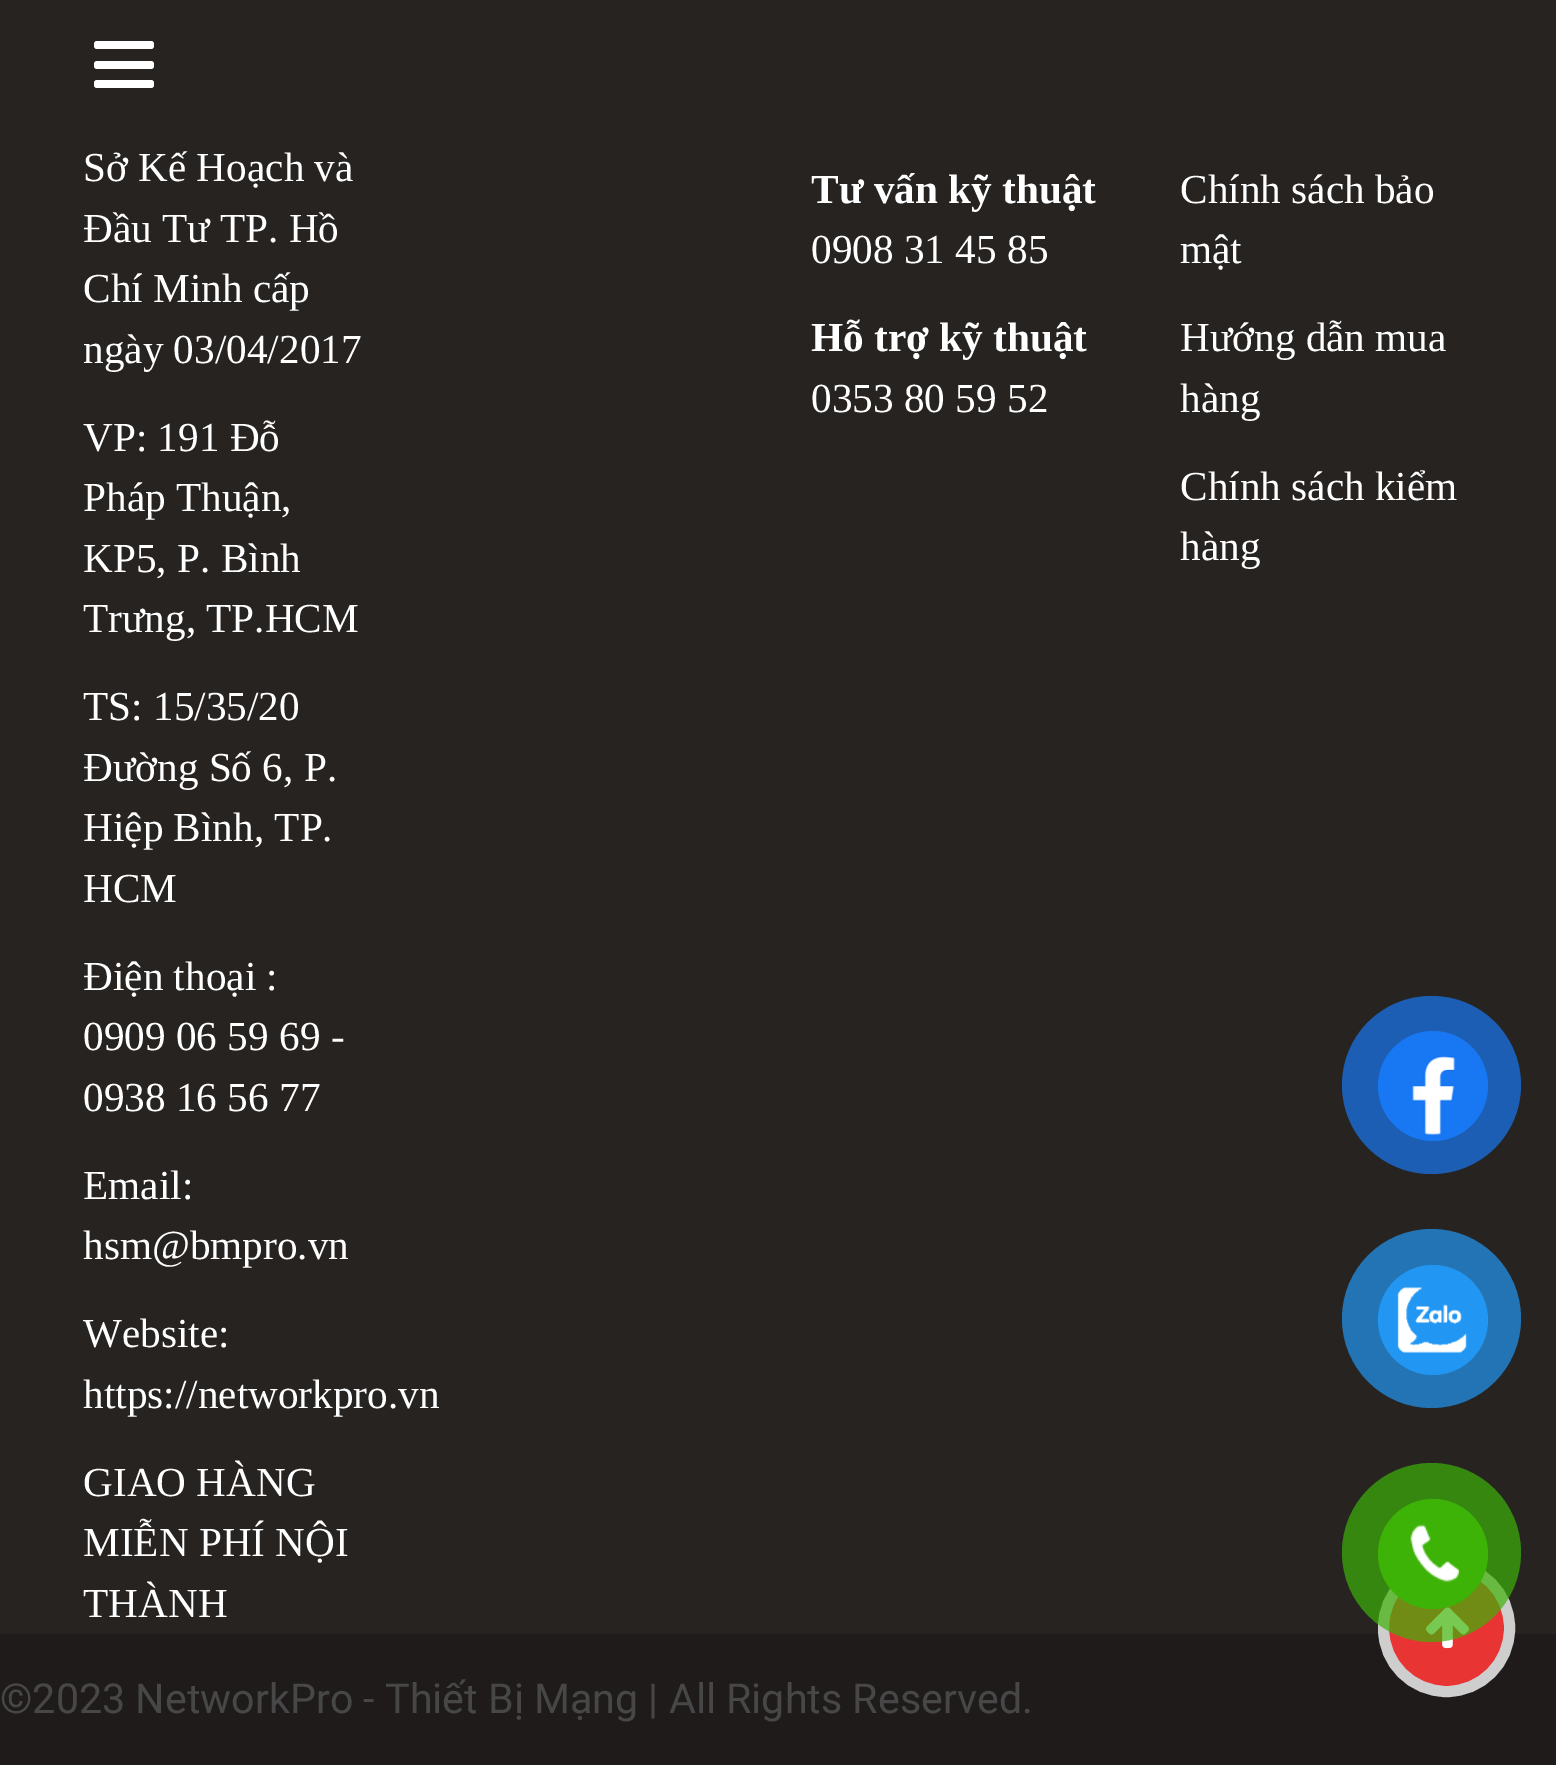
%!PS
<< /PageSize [1556 1765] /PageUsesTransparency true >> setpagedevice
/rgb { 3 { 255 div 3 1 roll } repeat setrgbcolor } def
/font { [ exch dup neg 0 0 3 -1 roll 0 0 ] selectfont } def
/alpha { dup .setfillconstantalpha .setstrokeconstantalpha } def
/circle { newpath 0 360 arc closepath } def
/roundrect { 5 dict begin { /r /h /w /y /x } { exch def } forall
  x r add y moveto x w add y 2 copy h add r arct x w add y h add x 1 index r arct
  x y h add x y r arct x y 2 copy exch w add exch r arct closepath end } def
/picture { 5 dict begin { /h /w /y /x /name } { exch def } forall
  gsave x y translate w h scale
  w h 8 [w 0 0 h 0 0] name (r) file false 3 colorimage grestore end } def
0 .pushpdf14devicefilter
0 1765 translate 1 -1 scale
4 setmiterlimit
30 27 26 rgb
0 0 1556 1765 rectfill
38 35 33 rgb
0 0 1556 1634 rectfill
255 255 255 rgb
94 41 60 8 3 roundrect fill
94 61 60 8 3 roundrect fill
94 80 60 8 3 roundrect fill
28 94 179 rgb
1342 996 179 178 89 roundrect fill
24 119 242 rgb
1433 1086 55 circle fill
(img/1.rgb) 1412 1056 44 79 picture
35 116 180 rgb
1431.5 1318.5 89.5 circle fill
33 150 243 rgb
1433 1320 55 circle fill
(img/2.rgb) 1397 1287 70 66 picture
233 52 52 rgb
1383.5 1564.5 126 127 63 roundrect gsave fill grestore
206 206 206 rgb
11 setlinewidth
stroke
(img/4.rgb) 1426 1607 43 42 picture
0.7 alpha
61 178 7 rgb
1431.5 1552.5 89.5 circle fill
1 alpha
1433 1554 55 circle fill
(img/3.rgb) 1410 1524 50 59 picture
/LiberationSerif-Regular 41.25 font
255 255 255 rgb
[
  [(Sở Kế Hoạch và) 83 181]
  [(Đầu Tư TP. Hồ) 83 242]
  [(Chí Minh cấp) 83 302]
  [(ngày 03/04/2017) 83 363]
  [(VP: 191 Đỗ) 83 451]
  [(Pháp Thuận,) 83 511]
  [(KP5, P. Bình) 83 572]
  [(Trưng, TP.HCM) 83 632]
  [(TS: 15/35/20) 83 720]
  [(Đường Số 6, P.) 83 781]
  [(Hiệp Bình, TP.) 83 841]
  [(HCM) 83 902]
  [(Điện thoại :) 83 990]
  [(0909 06 59 69 -) 83 1050]
  [(0938 16 56 77) 83 1111]
  [(Email:) 83 1199]
  [(hsm@bmpro.vn) 83 1259]
  [(Website:) 83 1347]
  [(https://networkpro.vn) 83 1408]
  [(GIAO HÀNG) 83 1496]
  [(MIỄN PHÍ NỘI) 83 1556]
  [(THÀNH) 83 1617]
] { aload pop moveto show } forall
/LiberationSerif-Bold 41.25 font
811 203 moveto (Tư vấn kỹ thuật) show
/LiberationSerif-Regular 41.25 font
811 263 moveto (0908 31 45 85) show
/LiberationSerif-Bold 41.25 font
811 351 moveto (Hỗ trợ kỹ thuật) show
/LiberationSerif-Regular 41.25 font
[
  [(0353 80 59 52) 811 412]
  [(Chính sách bảo) 1180 203]
  [(mật) 1180 263]
  [(Hướng dẫn mua) 1180 351]
  [(hàng) 1180 412]
  [(Chính sách kiểm) 1180 500]
  [(hàng) 1180 560]
] { aload pop moveto show } forall
/Roboto-Regular 41.25 font
71 71 71 rgb
0 1713 moveto (©2023 NetworkPro - Thiết Bị Mạng | All Rights Reserved.) show
.poppdf14devicefilter showpage
